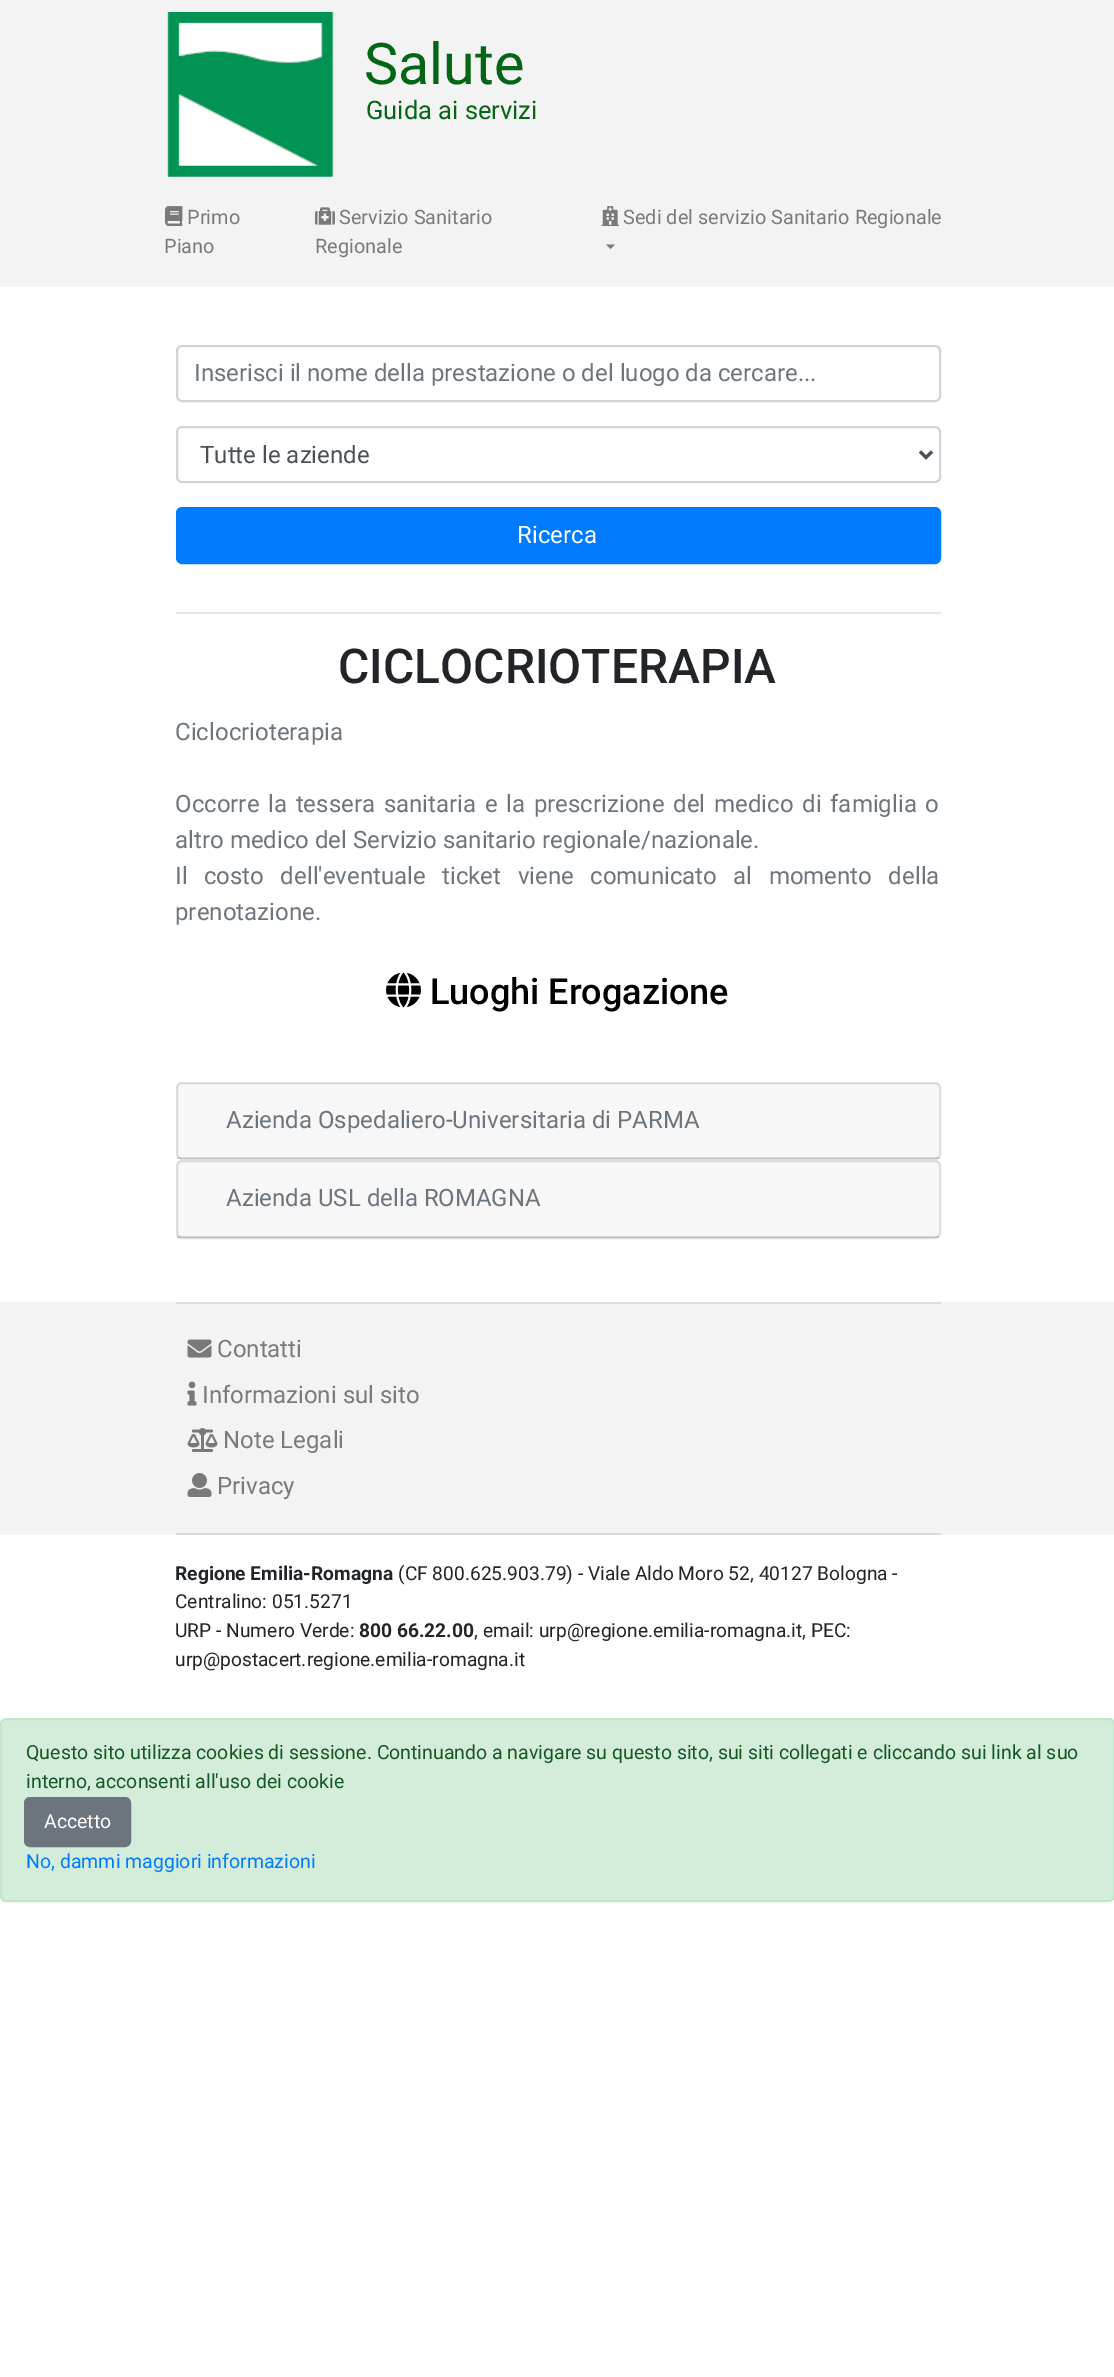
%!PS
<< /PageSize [1114 2377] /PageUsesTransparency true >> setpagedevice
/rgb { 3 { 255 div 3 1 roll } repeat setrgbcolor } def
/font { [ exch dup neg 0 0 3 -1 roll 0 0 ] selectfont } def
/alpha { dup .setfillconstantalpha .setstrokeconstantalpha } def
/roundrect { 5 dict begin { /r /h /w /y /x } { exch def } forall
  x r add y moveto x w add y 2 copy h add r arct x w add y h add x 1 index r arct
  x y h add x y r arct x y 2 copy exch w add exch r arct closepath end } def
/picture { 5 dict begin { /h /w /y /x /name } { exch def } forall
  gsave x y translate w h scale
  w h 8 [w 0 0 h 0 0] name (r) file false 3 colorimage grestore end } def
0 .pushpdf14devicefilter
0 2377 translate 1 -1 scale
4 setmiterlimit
255 255 255 rgb
0 0 1114 2377 rectfill
243 243 243 rgb
0 0 1114 287 rectfill
(img/1.rgb) 167 12 167 165 picture
(img/2.rgb) 165 206 18 20 picture
(img/3.rgb) 315 207 20 18 picture
(img/4.rgb) 601 206 18 20 picture
122 122 122 rgb
606 244.5 moveto 615 244.5 lineto 610.5 249 lineto closepath fill
206 212 218 rgb
2 setlinewidth
177 346 763 55 5 roundrect stroke
177 427 763 55 5 roundrect stroke
73 80 87 rgb
3 setlinewidth
920 451.5 moveto 926 457.5 lineto 932 451.5 lineto stroke
0 123 255 rgb
177 508 763 55 5 roundrect gsave fill grestore
2 setlinewidth
stroke
230 230 230 rgb
176 612 765 2 rectfill
(img/5.rgb) 386 972 35 36 picture
223 223 223 rgb
177 1083 763 76 5 roundrect stroke
0.03 alpha
0 0 0 rgb
177 1083 762 75 rectfill
0.12 alpha
177 1157 762 2 rectfill
1 alpha
223 223 223 rgb
177 1161 763 77 5 roundrect stroke
0.03 alpha
[
  [177 1161 762 77 0 0 0]
] { aload pop rgb rectfill } forall
0.12 alpha
[
  [177 1236 762 2 0 0 0]
] { aload pop rgb rectfill } forall
1 alpha
[
  [0 1302 1114 233 243 243 243]
  [176 1302 765 2 219 219 219]
] { aload pop rgb rectfill } forall
(img/6.rgb) 187 1339 25 19 picture
(img/7.rgb) 187 1381 10 25 picture
(img/8.rgb) 187 1428 31 24 picture
(img/9.rgb) 187 1473 25 24 picture
176 1533 765 2 rectfill
212 237 218 rgb
1 1719 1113 182 5 roundrect gsave fill grestore
195 230 203 rgb
stroke
108 117 125 rgb
25 1798 105 48 5 roundrect gsave fill grestore
stroke
/Roboto-Regular 57.5 font
3 102 21 rgb
364 84 moveto (Salute) show
/Roboto-Regular 25.5 font
366 119 moveto (Guida ai servizi) show
/Roboto-Regular 19.9 font
122 122 122 rgb
[
  [(Primo) 187 224]
  [(Piano) 164 253]
  [(Servizio Sanitario) 339 224]
  [(Regionale) 315 253]
  [(Sedi del servizio Sanitario Regionale) 623 224]
] { aload pop moveto show } forall
/Roboto-Regular 24 font
108 117 125 rgb
194 381 moveto (Inserisci il nome della prestazione o del luogo da cercare...) show
73 80 87 rgb
200 463 moveto (Tutte le aziende) show
255 255 255 rgb
517 543 moveto (Ricerca) show
/Roboto-Medium 48 font
33 37 41 rgb
338 683 moveto (CICLOCRIOTERAPIA) show
/Roboto-Regular 24 font
108 117 125 rgb
175 740 moveto (Ciclocrioterapia) show
175 812 moveto 2.75 0 32 (Occorre la tessera sanitaria e la prescrizione del medico di famiglia o) widthshow
175 848 moveto (altro medico del Servizio sanitario regionale/nazionale.) show
175 884 moveto 10.5 0 32 (Il costo dell'eventuale ticket viene comunicato al momento della) widthshow
175 920 moveto (prenotazione.) show
/Roboto-Medium 36 font
0 0 0 rgb
430 1004 moveto (Luoghi Erogazione) show
/Roboto-Regular 24 font
108 117 125 rgb
226 1128 moveto (Azienda Ospedaliero-Universitaria di PARMA) show
226 1206 moveto (Azienda USL della ROMAGNA) show
122 122 122 rgb
[
  [(Contatti) 217 1357]
  [(Informazioni sul sito) 202 1403]
  [(Note Legali) 223 1448]
  [(Privacy) 217 1494]
] { aload pop moveto show } forall
/Roboto-Bold 19.2 font
33 37 41 rgb
175 1580 moveto (Regione Emilia-Romagna) show
/Roboto-Regular 19.2 font
[
  [(\(CF 800.625.903.79\) - Viale Aldo Moro 52, 40127 Bologna -) 398 1580]
  [(Centralino: 051.5271) 175 1608]
  [(URP - Numero Verde:) 175 1637]
] { aload pop moveto show } forall
/Roboto-Bold 19.2 font
359 1637 moveto (800 66.22.00) show
/Roboto-Regular 19.2 font
474 1637 moveto (, email: urp@regione.emilia-romagna.it, PEC:) show
175 1666 moveto (urp@postacert.regione.emilia-romagna.it) show
/Roboto-Regular 19.5 font
21 87 36 rgb
26 1759 moveto (Questo sito utilizza cookies di sessione. Continuando a navigare su questo sito, sui siti collegati e cliccando sui link al suo) show
26 1788 moveto (interno, acconsenti all'uso dei cookie) show
255 255 255 rgb
44 1828 moveto (Accetto) show
0 123 255 rgb
26 1868 moveto (No, dammi maggiori informazioni) show
.poppdf14devicefilter showpage
